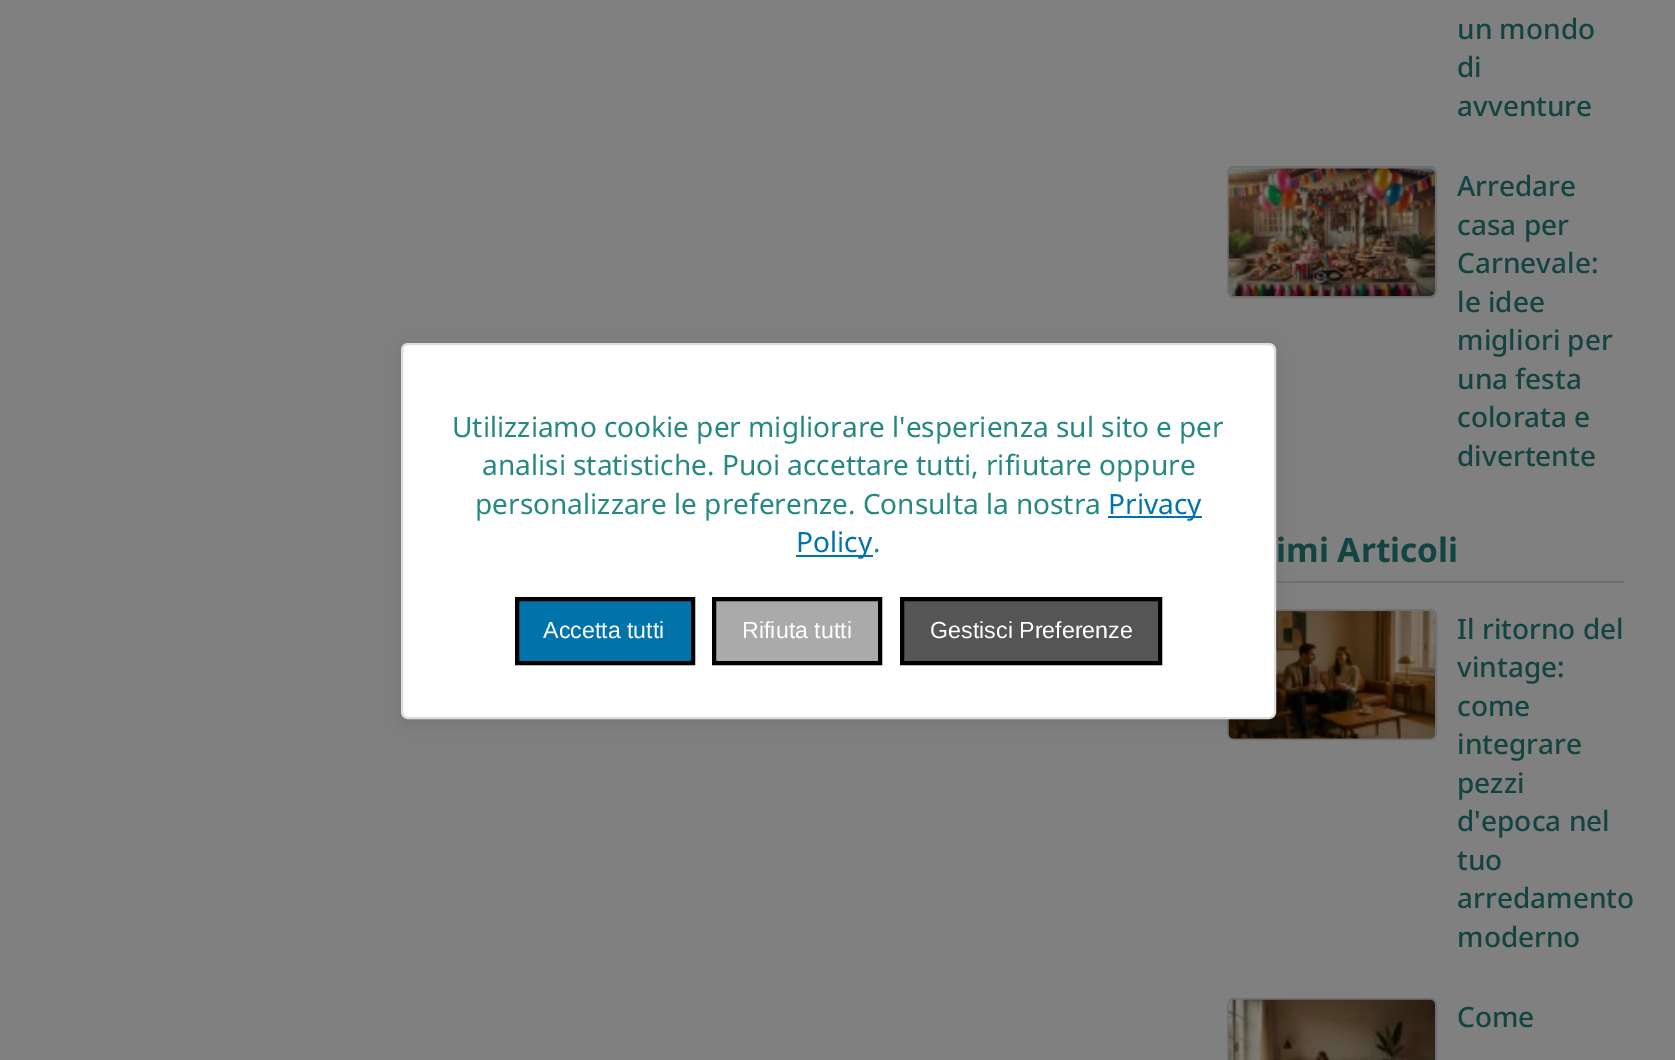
%!PS
<< /PageSize [1675 1060] /PageUsesTransparency true >> setpagedevice
/rgb { 3 { 255 div 3 1 roll } repeat setrgbcolor } def
/font { [ exch dup neg 0 0 3 -1 roll 0 0 ] selectfont } def
/alpha { dup .setfillconstantalpha .setstrokeconstantalpha } def
/roundrect { 5 dict begin { /r /h /w /y /x } { exch def } forall
  x r add y moveto x w add y 2 copy h add r arct x w add y h add x 1 index r arct
  x y h add x y r arct x y 2 copy exch w add exch r arct closepath end } def
/shadow { 12 dict begin { /a /b /q /h /w /y /x } { exch def } forall gsave /was 0 def
  9 -2 -9 { dup b mul 4 div /e exch def 1 sub .425 mul 2.718 exch exp 1 add a .99 .min exch div /now exch def
    1 1 now sub 1 was sub div sub alpha /was now def
    w h .min e 2 mul add 0 gt { x e sub y e sub w e 2 mul add h e 2 mul add
      q e add b .6 mul add w h .min 2 div e add .min 0 .max roundrect fill } if } for grestore end } def
/picture { 5 dict begin { /h /w /y /x /name } { exch def } forall
  gsave x y translate w h scale
  w h 8 [w 0 0 h 0 0] name (r) file false 3 colorimage grestore end } def
0 .pushpdf14devicefilter
0 1060 translate 1 -1 scale
4 setmiterlimit
128 128 128 rgb
0 0 1675 1060 rectfill
111 111 111 rgb
1276 581 348 2 rectfill
2 setlinewidth
1228 610 208 129 6 roundrect stroke
(img/2.rgb) 1228 611 207 128 picture
0 0 0 rgb
401 347 875 376 7 9 0.1 shadow
255 255 255 rgb
402 344 873 374 6 roundrect gsave fill grestore
221 221 221 rgb
stroke
0 115 170 rgb
1108 516 94 2 rectfill
796 555 77 2 rectfill
517 599 moveto 693 599 lineto 693 663 lineto 517 663 lineto closepath gsave fill grestore
0 0 0 rgb
4 setlinewidth
stroke
170 170 170 rgb
714 599 moveto 880 599 lineto 880 663 lineto 714 663 lineto closepath gsave fill grestore
0 0 0 rgb
stroke
85 85 85 rgb
902 599 moveto 1160 599 lineto 1160 663 lineto 902 663 lineto closepath gsave fill grestore
0 0 0 rgb
stroke
111 111 111 rgb
2 setlinewidth
1228 167 208 130 6 roundrect stroke
(img/1.rgb) 1228 168 207 128 picture
1228 999 208 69 6 roundrect stroke
(img/3.rgb) 1228 999 207 61 picture
/NotoSans-Regular 28 font
37 136 130 rgb
[
  [(Utilizziamo cookie per migliorare l'esperienza sul sito e per) 452 437]
  [(analisi statistiche. Puoi accettare tutti, rifiutare oppure) 482 475]
  [(personalizzare le preferenze. Consulta la nostra) 475 514]
] { aload pop moveto show } forall
0 115 170 rgb
1108 514 moveto (Privacy) show
796 552 moveto (Policy) show
37 136 130 rgb
873 552 moveto (.) show
/LiberationSans-Regular 23.25 font
255 255 255 rgb
[
  [(Accetta tutti) 543 638]
  [(Rifiuta tutti) 742 638]
  [(Gestisci Preferenze) 930 638]
] { aload pop moveto show } forall
/NotoSans-Medium 28 font
19 68 65 rgb
[
  [(un mondo) 1457 39]
  [(di) 1457 77]
  [(avventure) 1457 116]
  [(Arredare) 1457 196]
  [(casa per) 1457 235]
  [(Carnevale:) 1457 273]
  [(le idee) 1457 312]
  [(migliori per) 1457 350]
  [(una festa) 1457 389]
  [(colorata e) 1457 427]
  [(divertente) 1457 466]
] { aload pop moveto show } forall
/NotoSans-Bold 33.5 font
1276 562 moveto (imi Articoli) show
/NotoSans-Medium 28 font
[
  [(Il ritorno del) 1457 639]
  [(vintage:) 1457 677]
  [(come) 1457 716]
  [(integrare) 1457 754]
  [(pezzi) 1457 793]
  [(d'epoca nel) 1457 831]
  [(tuo) 1457 870]
  [(arredamento) 1457 908]
  [(moderno) 1457 947]
  [(Come) 1457 1027]
] { aload pop moveto show } forall
.poppdf14devicefilter showpage
